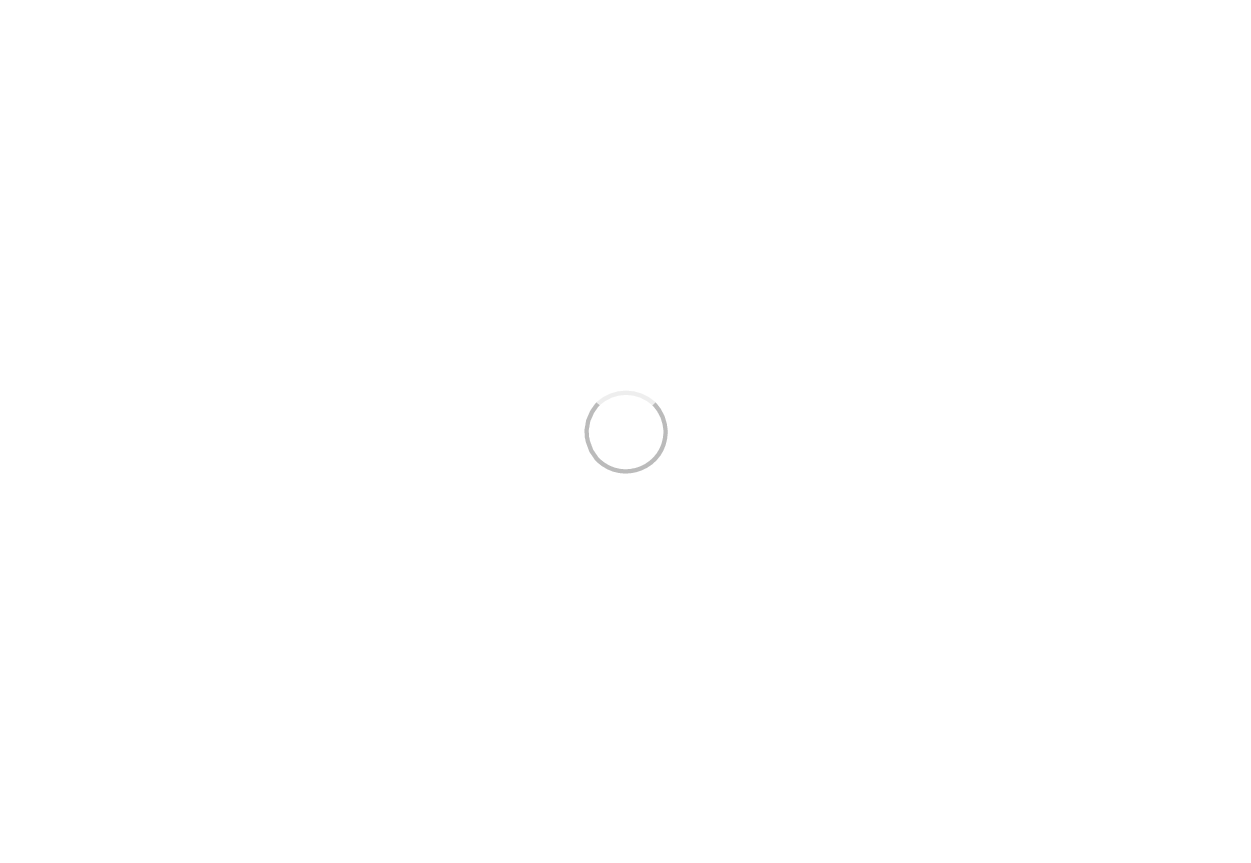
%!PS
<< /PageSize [1251 863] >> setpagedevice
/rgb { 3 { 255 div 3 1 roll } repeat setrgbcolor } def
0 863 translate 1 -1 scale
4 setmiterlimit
255 255 255 rgb
0 0 1251 863 rectfill
238 238 238 rgb
4 setlinewidth
598 404 moveto 613.5 389 638.5 389 654 404 curveto stroke
187 187 187 rgb
654 404 moveto 661.5 411.5 665.5 421.5 665.5 432 curveto 665.5 467 623 484.5 598 460 curveto 592.5 454.5 589 447.5 587.5 439.5 curveto 584.5 427 589 413.5 598 404 curveto stroke
showpage
